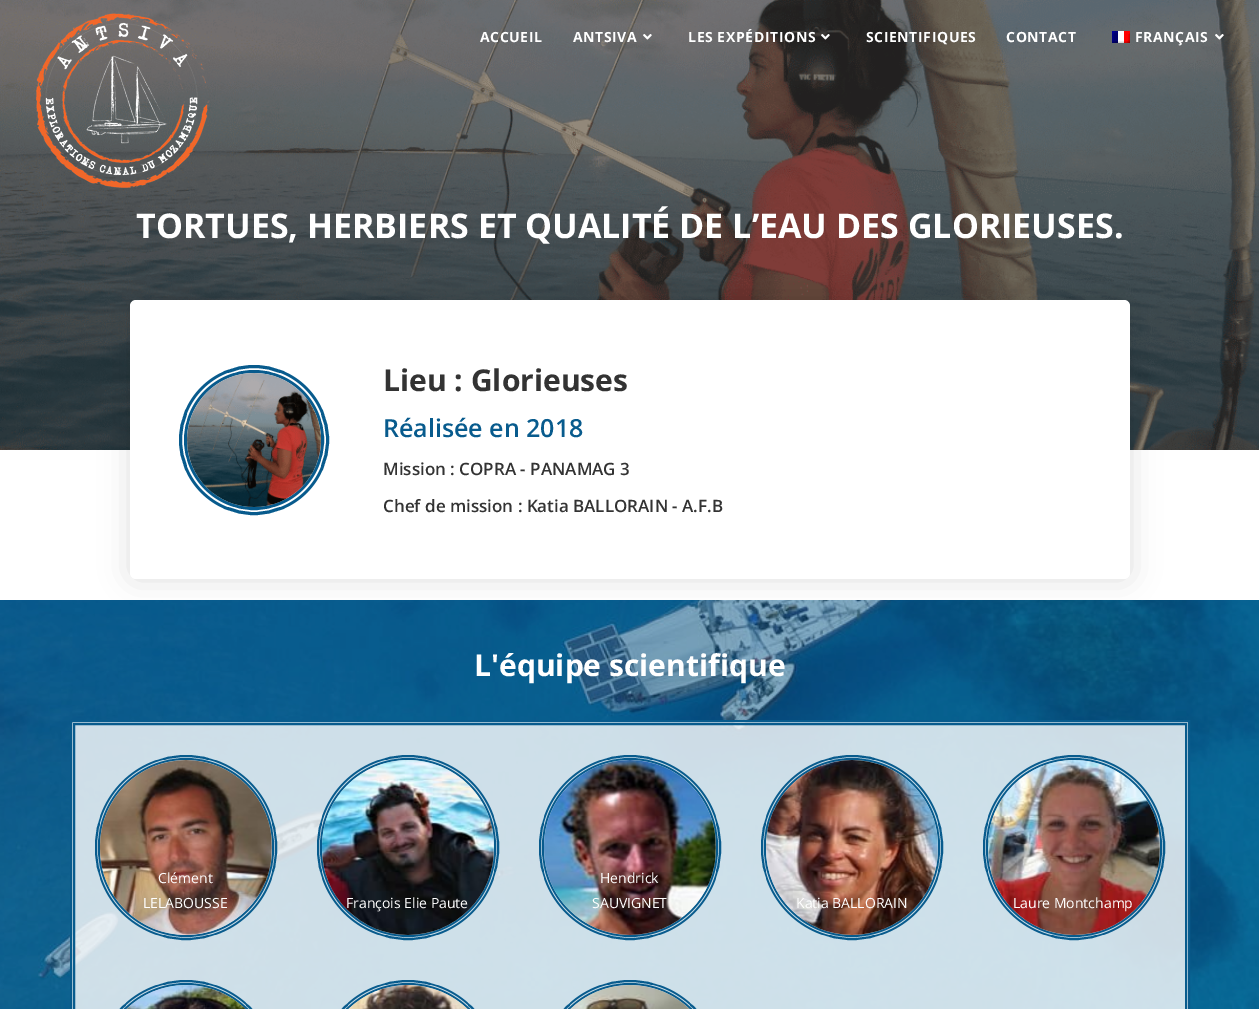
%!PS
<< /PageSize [1259 1009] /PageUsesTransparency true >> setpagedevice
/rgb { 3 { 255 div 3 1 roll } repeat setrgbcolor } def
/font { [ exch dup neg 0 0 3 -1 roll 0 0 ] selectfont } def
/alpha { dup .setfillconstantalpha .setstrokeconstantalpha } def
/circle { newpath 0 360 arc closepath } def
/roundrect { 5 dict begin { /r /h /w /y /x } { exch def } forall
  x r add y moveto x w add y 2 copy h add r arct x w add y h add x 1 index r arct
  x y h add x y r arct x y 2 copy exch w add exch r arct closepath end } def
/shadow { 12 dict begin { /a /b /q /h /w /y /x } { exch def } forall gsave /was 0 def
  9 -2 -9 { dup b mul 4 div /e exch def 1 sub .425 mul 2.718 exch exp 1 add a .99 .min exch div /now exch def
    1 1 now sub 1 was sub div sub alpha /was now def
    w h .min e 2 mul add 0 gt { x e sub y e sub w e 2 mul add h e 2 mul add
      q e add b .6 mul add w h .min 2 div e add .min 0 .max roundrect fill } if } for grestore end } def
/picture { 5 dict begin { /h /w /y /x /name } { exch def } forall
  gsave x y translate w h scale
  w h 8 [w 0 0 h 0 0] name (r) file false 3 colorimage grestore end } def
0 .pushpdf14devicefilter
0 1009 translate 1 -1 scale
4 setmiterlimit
255 255 255 rgb
0 0 1259 1009 rectfill
(img/6.rgb) 0 0 1259 450 picture
(img/1.rgb) 36 13 174 175 picture
(img/2.rgb) 643 34 9 6 picture
(img/3.rgb) 821 34 9 6 picture
(img/4.rgb) 1112 31 18 12 picture
(img/5.rgb) 1215 34 9 6 picture
0 0 0 rgb
130 300 1000 279 6 15 0.13 shadow
255 255 255 rgb
130 300 1000 279 6 roundrect fill
8 91 141 rgb
3 setlinewidth
254 440 73.5 circle stroke
254 440 68.5 circle stroke
(img/7.rgb) 187 373 134 134 picture
(img/8.rgb) 0 600 1259 409 picture
0.8 alpha
255 255 255 rgb
71 721 moveto 1189 721 lineto 1189 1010 lineto 71 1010 lineto closepath fill
1 alpha
8 91 141 rgb
2 setlinewidth
71 721 moveto 1189 721 lineto 1189 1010 lineto 71 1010 lineto closepath stroke
74 724 1112 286 rectstroke
96 756 180 183 90 roundrect stroke
99 759 174 177 87 roundrect stroke
(img/9.rgb) 100 760 172 175 picture
318 756 180 183 90 roundrect stroke
321 759 174 177 87 roundrect stroke
(img/10.rgb) 322 760 172 175 picture
540 756 180 183 90 roundrect stroke
543 759 174 177 87 roundrect stroke
(img/11.rgb) 544 760 172 175 picture
762 756 180 183 90 roundrect stroke
765 759 174 177 87 roundrect stroke
(img/12.rgb) 766 760 172 175 picture
984 756 180 183 90 roundrect stroke
987 759 174 177 87 roundrect stroke
(img/13.rgb) 988 760 172 175 picture
96 981 180 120 90 roundrect stroke
99 984 174 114 87 roundrect stroke
(img/14.rgb) 126 985 120 24 picture
318 981 180 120 90 roundrect stroke
321 984 174 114 87 roundrect stroke
(img/15.rgb) 348 985 120 24 picture
540 981 180 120 90 roundrect stroke
543 984 174 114 87 roundrect stroke
(img/16.rgb) 570 985 120 24 picture
/OpenSans-Bold 14 font
255 255 255 rgb
480 42 moveto 0.6 0 (ACCUEIL) ashow
573 42 moveto 0.6 0 (ANTSIVA) ashow
688 42 moveto 0.6 0 (LES EXPÉDITIONS) ashow
866 42 moveto 0.6 0 (SCIENTIFIQUES) ashow
1006 42 moveto 0.6 0 (CONTACT) ashow
1135 42 moveto 0.6 0 (FRANÇAIS) ashow
/OpenSans-Bold 34 font
136 238 moveto (TORTUES, HERBIERS ET QUALITÉ DE L’EAU DES GLORIEUSES.) show
/OpenSans-Bold 30 font
51 51 51 rgb
383 391 moveto (Lieu : Glorieuses) show
/OpenSans-SemiBold 25 font
8 91 141 rgb
383 437 moveto (Réalisée en 2018) show
/OpenSans-SemiBold 17 font
51 51 51 rgb
383 475 moveto (Mission : COPRA - PANAMAG 3) show
383 512 moveto (Chef de mission : Katia BALLORAIN - A.F.B) show
/OpenSans-Bold 30 font
255 255 255 rgb
474 676 moveto (L'équipe scientifique) show
/OpenSans-Regular 14 font
[
  [(Clément) 158 883]
  [(LELABOUSSE) 143 908]
  [(François Elie Paute) 346 908]
  [(Hendrick) 600 883]
  [(SAUVIGNET) 592 908]
  [(Katia BALLORAIN) 796 908]
  [(Laure Montchamp) 1013 908]
] { aload pop moveto show } forall
.poppdf14devicefilter showpage
